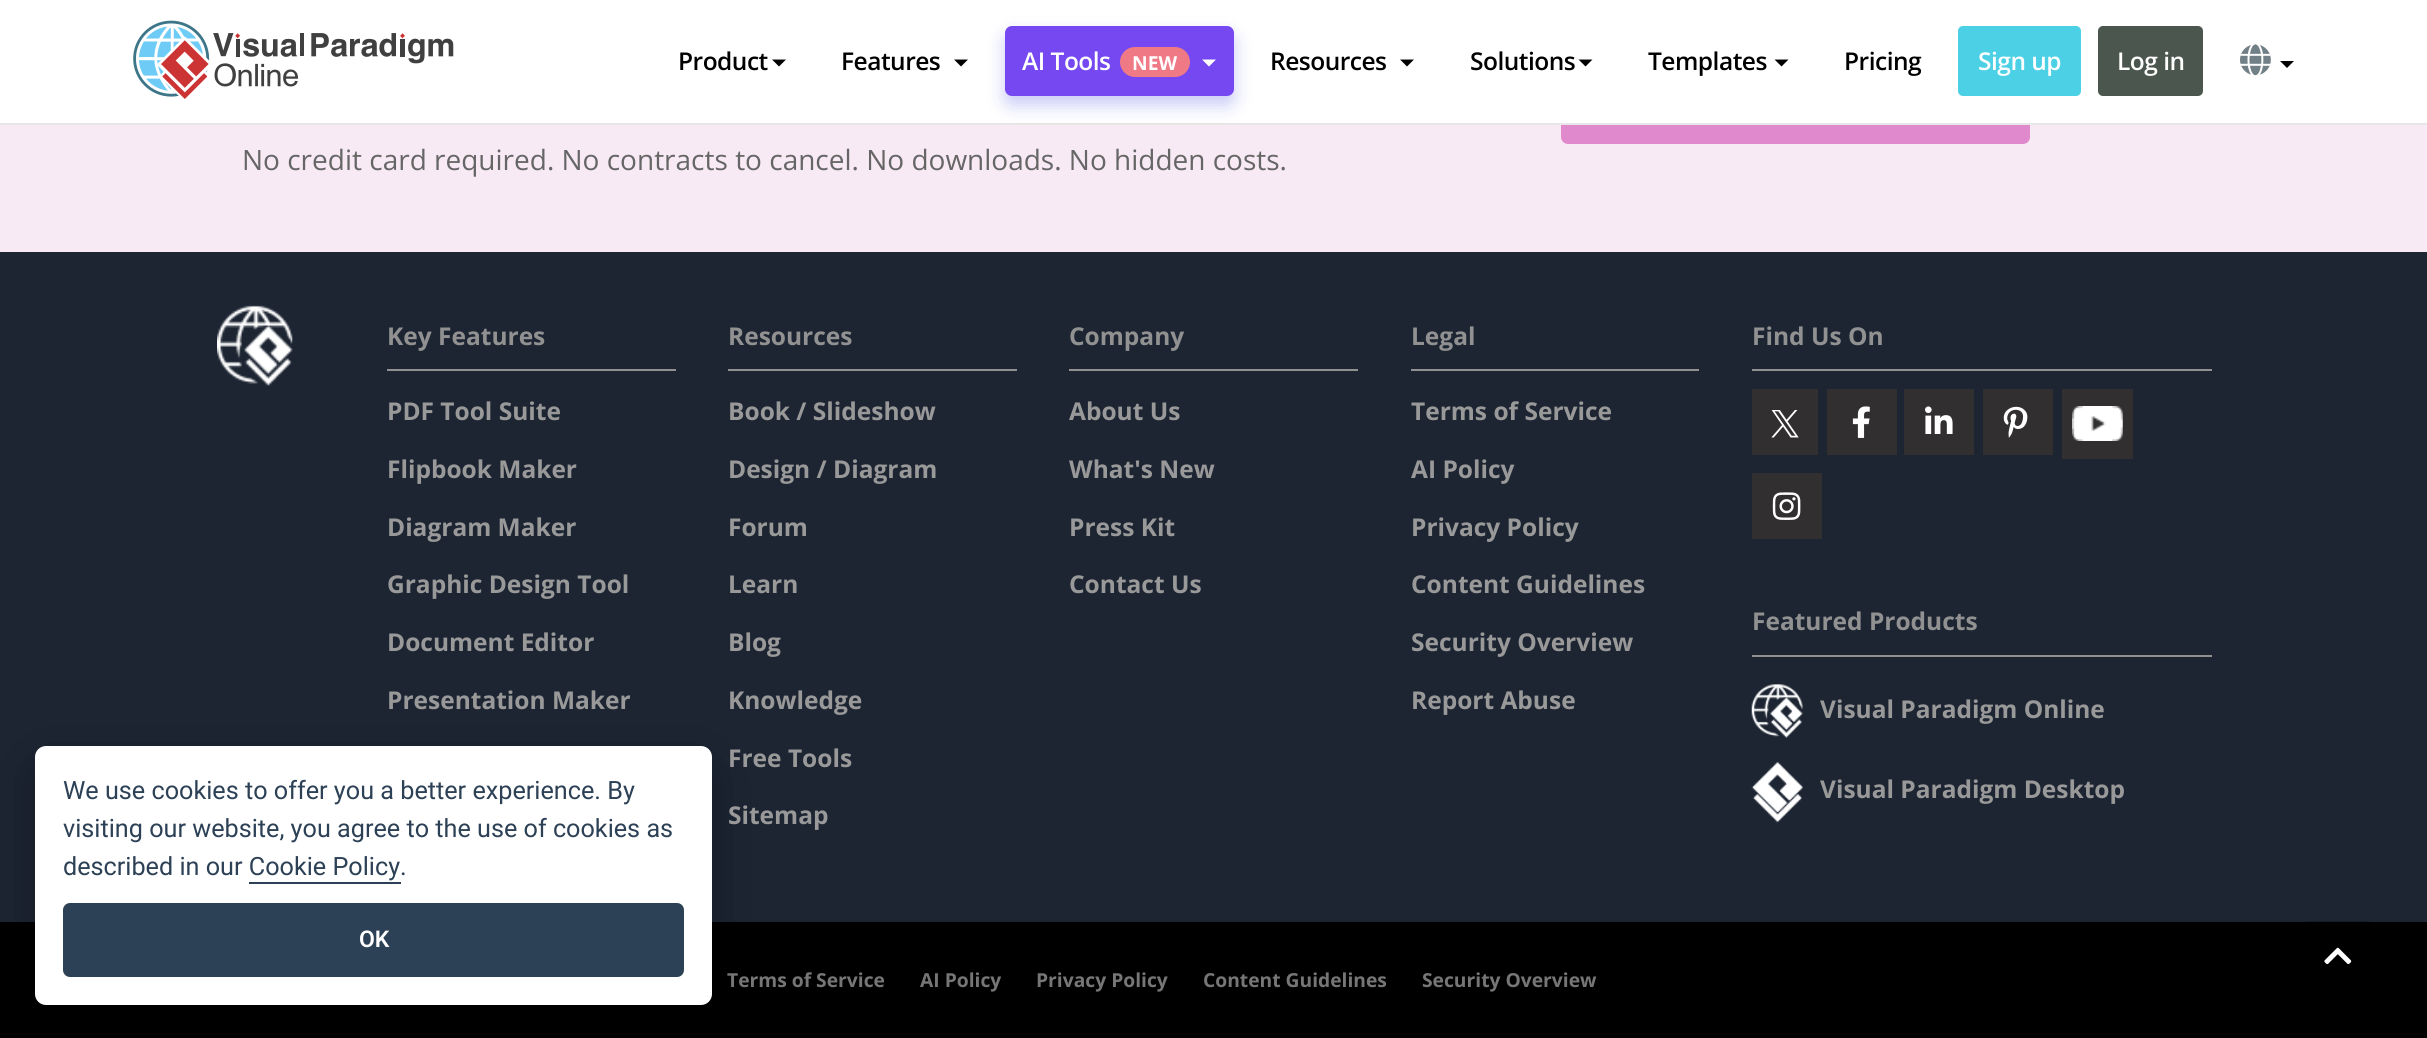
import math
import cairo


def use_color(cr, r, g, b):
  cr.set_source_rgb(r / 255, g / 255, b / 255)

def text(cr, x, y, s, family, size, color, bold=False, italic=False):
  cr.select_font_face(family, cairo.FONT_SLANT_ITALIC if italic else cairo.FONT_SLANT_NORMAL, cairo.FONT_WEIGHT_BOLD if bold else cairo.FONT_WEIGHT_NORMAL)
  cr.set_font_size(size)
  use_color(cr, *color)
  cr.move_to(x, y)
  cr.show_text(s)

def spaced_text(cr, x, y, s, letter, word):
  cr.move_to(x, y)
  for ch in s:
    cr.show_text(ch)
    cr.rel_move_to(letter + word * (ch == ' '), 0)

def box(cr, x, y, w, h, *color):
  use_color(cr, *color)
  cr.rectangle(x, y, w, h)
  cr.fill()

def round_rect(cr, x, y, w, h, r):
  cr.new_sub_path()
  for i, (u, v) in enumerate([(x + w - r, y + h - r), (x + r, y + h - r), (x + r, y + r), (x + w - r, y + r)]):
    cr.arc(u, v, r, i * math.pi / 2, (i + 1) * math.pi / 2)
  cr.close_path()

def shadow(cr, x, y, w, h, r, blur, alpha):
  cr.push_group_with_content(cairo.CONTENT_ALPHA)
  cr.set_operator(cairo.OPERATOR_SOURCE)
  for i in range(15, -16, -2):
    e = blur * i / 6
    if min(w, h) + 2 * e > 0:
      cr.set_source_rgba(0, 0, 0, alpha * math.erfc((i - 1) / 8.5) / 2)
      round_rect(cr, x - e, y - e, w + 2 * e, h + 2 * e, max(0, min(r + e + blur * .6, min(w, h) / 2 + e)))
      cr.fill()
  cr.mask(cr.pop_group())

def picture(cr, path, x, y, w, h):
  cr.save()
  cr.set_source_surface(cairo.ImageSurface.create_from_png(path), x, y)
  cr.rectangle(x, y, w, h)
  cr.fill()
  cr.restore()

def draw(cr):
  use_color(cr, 248, 234, 245)
  cr.paint()
  use_color(cr, 224, 137, 205)
  round_rect(cr, 1561, 74, 469, 70, 7)
  cr.fill()
  box(cr, 0, 0, 2427, 123, 255, 255, 255)
  box(cr, 0, 123, 2427, 2, 231, 231, 231)
  picture(cr, "img_01.png", 133, 20, 321, 79)
  use_color(cr, 0, 0, 0)
  cr.new_path()
  cr.move_to(772, 59.5)
  cr.line_to(786, 59.5)
  cr.line_to(779, 66.5)
  cr.close_path()
  cr.fill()
  cr.new_path()
  cr.move_to(954, 59.5)
  cr.line_to(968, 59.5)
  cr.line_to(961, 66.5)
  cr.close_path()
  cr.fill()
  use_color(cr, 76, 78, 229)
  shadow(cr, 1005, 35, 229, 70, 7, 9, 0.3)
  use_color(cr, 117, 72, 241)
  round_rect(cr, 1005, 26, 229, 70, 7)
  cr.fill()
  use_color(cr, 239, 122, 133)
  round_rect(cr, 1120, 47, 70, 30, 15)
  cr.fill()
  use_color(cr, 255, 255, 255)
  cr.new_path()
  cr.move_to(1202, 59.5)
  cr.line_to(1216, 59.5)
  cr.line_to(1209, 66.5)
  cr.close_path()
  cr.fill()
  use_color(cr, 0, 0, 0)
  cr.new_path()
  cr.move_to(1400, 59.5)
  cr.line_to(1414, 59.5)
  cr.line_to(1407, 66.5)
  cr.close_path()
  cr.fill()
  cr.new_path()
  cr.move_to(1578.5, 59.5)
  cr.line_to(1592.5, 59.5)
  cr.line_to(1585.5, 66.5)
  cr.close_path()
  cr.fill()
  cr.new_path()
  cr.move_to(1774.5, 59.5)
  cr.line_to(1788.5, 59.5)
  cr.line_to(1781.5, 66.5)
  cr.close_path()
  cr.fill()
  use_color(cr, 76, 208, 229)
  round_rect(cr, 1958, 26, 123, 70, 5)
  cr.fill()
  use_color(cr, 74, 86, 78)
  round_rect(cr, 2098, 26, 105, 70, 5)
  cr.fill()
  picture(cr, "img_02.png", 2240, 44, 31, 32)
  use_color(cr, 0, 0, 0)
  cr.new_path()
  cr.move_to(2280, 61)
  cr.line_to(2294, 61)
  cr.line_to(2287, 68)
  cr.close_path()
  cr.fill()
  box(cr, 0, 252, 2427, 670, 29, 37, 51)
  box(cr, 0, 922, 2427, 116, 0, 0, 0)
  use_color(cr, 2, 2, 3)
  shadow(cr, 35, 763, 677, 259, 11, 26, 0.28)
  use_color(cr, 255, 255, 255)
  round_rect(cr, 35, 746, 677, 259, 11)
  cr.fill()
  box(cr, 249, 882, 152, 2, 45, 65, 86)
  round_rect(cr, 63, 903, 621, 74, 7)
  cr.fill()
  picture(cr, "img_03.png", 217, 305, 76, 81)
  box(cr, 387, 369, 289, 2, 145, 145, 145)
  box(cr, 728, 369, 289, 2, 145, 145, 145)
  box(cr, 1069, 369, 289, 2, 145, 145, 145)
  box(cr, 1411, 369, 288, 2, 145, 145, 145)
  box(cr, 1752, 369, 460, 2, 145, 145, 145)
  box(cr, 1752, 389, 66, 66, 50, 47, 48)
  picture(cr, "img_04.png", 1771, 410, 28, 28)
  box(cr, 1827, 389, 70, 66, 50, 47, 48)
  picture(cr, "img_05.png", 1852, 406, 18, 32)
  box(cr, 1904, 389, 70, 66, 50, 47, 48)
  picture(cr, "img_06.png", 1925, 406, 28, 28)
  box(cr, 1983, 389, 70, 66, 50, 47, 48)
  picture(cr, "img_07.png", 2003, 406, 25, 32)
  box(cr, 2062, 389, 71, 70, 50, 47, 48)
  picture(cr, "img_08.png", 2072, 406, 51, 35)
  box(cr, 1752, 473, 70, 66, 50, 47, 48)
  picture(cr, "img_09.png", 1772, 492, 29, 28)
  box(cr, 1752, 655, 460, 2, 145, 145, 145)
  picture(cr, "img_10.png", 1751, 684, 52, 54)
  picture(cr, "img_11.png", 1751, 761, 52, 62)
  cr.set_source_rgba(0, 0, 0, 0.2)
  round_rect(cr, 2298, 921, 80, 70, 11)
  cr.fill()
  picture(cr, "img_12.png", 2324, 947, 28, 18)
  cr.select_font_face("Open Sans SemiBold")
  cr.set_font_size(24.5)
  use_color(cr, 0, 0, 0)
  spaced_text(cr, 678, 70, "Product", -0.5, 0)
  spaced_text(cr, 841, 70, "Features", -0.5, 0)
  use_color(cr, 255, 255, 255)
  spaced_text(cr, 1022, 70, "AI Tools", -0.5, 0)
  text(cr, 1132, 70, "NEW", "Open Sans", 19.25, (255, 255, 255), bold=True)
  cr.select_font_face("Open Sans SemiBold")
  cr.set_font_size(24.5)
  use_color(cr, 0, 0, 0)
  spaced_text(cr, 1270, 70, "Resources", -0.5, 0)
  spaced_text(cr, 1470, 70, "Solutions", -0.5, 0)
  spaced_text(cr, 1648, 70, "Templates", -0.5, 0)
  spaced_text(cr, 1844, 70, "Pricing", -0.5, 0)
  use_color(cr, 255, 255, 255)
  spaced_text(cr, 1978, 70, "Sign up", -0.5, 0)
  spaced_text(cr, 2117, 70, "Log in", -0.5, 0)
  text(cr, 242, 170, "No credit card required. No contracts to cancel. No downloads. No hidden costs.", "Open Sans", 28, (102, 102, 102))
  text(cr, 63, 799, "We use cookies to offer you a better experience. By", "Roboto", 25.2, (45, 65, 86))
  text(cr, 63, 837, "visiting our website, you agree to the use of cookies as", "Roboto", 25.2, (45, 65, 86))
  text(cr, 63, 875, "described in our Cookie Policy.", "Roboto", 25.2, (45, 65, 86))
  text(cr, 359, 947, "OK", "Roboto SemiBold", 23, (255, 255, 255))
  text(cr, 387, 345, "Key Features", "Open Sans", 24.5, (145, 145, 145), bold=True)
  text(cr, 387, 420, "PDF Tool Suite", "Open Sans", 24.5, (153, 153, 153), bold=True)
  text(cr, 387, 478, "Flipbook Maker", "Open Sans", 24.5, (153, 153, 153), bold=True)
  text(cr, 387, 536, "Diagram Maker", "Open Sans", 24.5, (153, 153, 153), bold=True)
  text(cr, 387, 593, "Graphic Design Tool", "Open Sans", 24.5, (153, 153, 153), bold=True)
  text(cr, 387, 651, "Document Editor", "Open Sans", 24.5, (153, 153, 153), bold=True)
  text(cr, 387, 709, "Presentation Maker", "Open Sans", 24.5, (153, 153, 153), bold=True)
  text(cr, 728, 345, "Resources", "Open Sans", 24.5, (145, 145, 145), bold=True)
  text(cr, 728, 420, "Book / Slideshow", "Open Sans", 24.5, (153, 153, 153), bold=True)
  text(cr, 728, 478, "Design / Diagram", "Open Sans", 24.5, (153, 153, 153), bold=True)
  text(cr, 728, 536, "Forum", "Open Sans", 24.5, (153, 153, 153), bold=True)
  text(cr, 728, 593, "Learn", "Open Sans", 24.5, (153, 153, 153), bold=True)
  text(cr, 728, 651, "Blog", "Open Sans", 24.5, (153, 153, 153), bold=True)
  text(cr, 728, 709, "Knowledge", "Open Sans", 24.5, (153, 153, 153), bold=True)
  text(cr, 728, 767, "Free Tools", "Open Sans", 24.5, (153, 153, 153), bold=True)
  text(cr, 728, 824, "Sitemap", "Open Sans", 24.5, (153, 153, 153), bold=True)
  text(cr, 1069, 345, "Company", "Open Sans", 24.5, (145, 145, 145), bold=True)
  text(cr, 1069, 420, "About Us", "Open Sans", 24.5, (153, 153, 153), bold=True)
  text(cr, 1069, 478, "What's New", "Open Sans", 24.5, (153, 153, 153), bold=True)
  text(cr, 1069, 536, "Press Kit", "Open Sans", 24.5, (153, 153, 153), bold=True)
  text(cr, 1069, 593, "Contact Us", "Open Sans", 24.5, (153, 153, 153), bold=True)
  text(cr, 1411, 345, "Legal", "Open Sans", 24.5, (145, 145, 145), bold=True)
  text(cr, 1411, 420, "Terms of Service", "Open Sans", 24.5, (153, 153, 153), bold=True)
  text(cr, 1411, 478, "AI Policy", "Open Sans", 24.5, (153, 153, 153), bold=True)
  text(cr, 1411, 536, "Privacy Policy", "Open Sans", 24.5, (153, 153, 153), bold=True)
  text(cr, 1411, 593, "Content Guidelines", "Open Sans", 24.5, (153, 153, 153), bold=True)
  text(cr, 1411, 651, "Security Overview", "Open Sans", 24.5, (153, 153, 153), bold=True)
  text(cr, 1411, 709, "Report Abuse", "Open Sans", 24.5, (153, 153, 153), bold=True)
  text(cr, 1752, 345, "Find Us On", "Open Sans", 24.5, (145, 145, 145), bold=True)
  text(cr, 1752, 630, "Featured Products", "Open Sans", 24.5, (145, 145, 145), bold=True)
  text(cr, 1820, 718, "Visual Paradigm Online", "Open Sans", 24.5, (153, 153, 153), bold=True)
  text(cr, 1820, 798, "Visual Paradigm Desktop", "Open Sans", 24.5, (153, 153, 153), bold=True)
  text(cr, 727, 987, "Terms of Service", "Open Sans", 19.25, (118, 118, 118), bold=True)
  text(cr, 920, 987, "AI Policy", "Open Sans", 19.25, (118, 118, 118), bold=True)
  text(cr, 1036, 987, "Privacy Policy", "Open Sans", 19.25, (118, 118, 118), bold=True)
  text(cr, 1203, 987, "Content Guidelines", "Open Sans", 19.25, (118, 118, 118), bold=True)
  text(cr, 1422, 987, "Security Overview", "Open Sans", 19.25, (118, 118, 118), bold=True)


surface = cairo.ImageSurface(cairo.FORMAT_RGB24, 2427, 1038)
cr = cairo.Context(surface)
options = cairo.FontOptions()
options.set_hint_metrics(cairo.HINT_METRICS_OFF)
options.set_hint_style(cairo.HINT_STYLE_NONE)
cr.set_font_options(options)
cr.set_miter_limit(4)
draw(cr)
surface.write_to_png("out.png")
